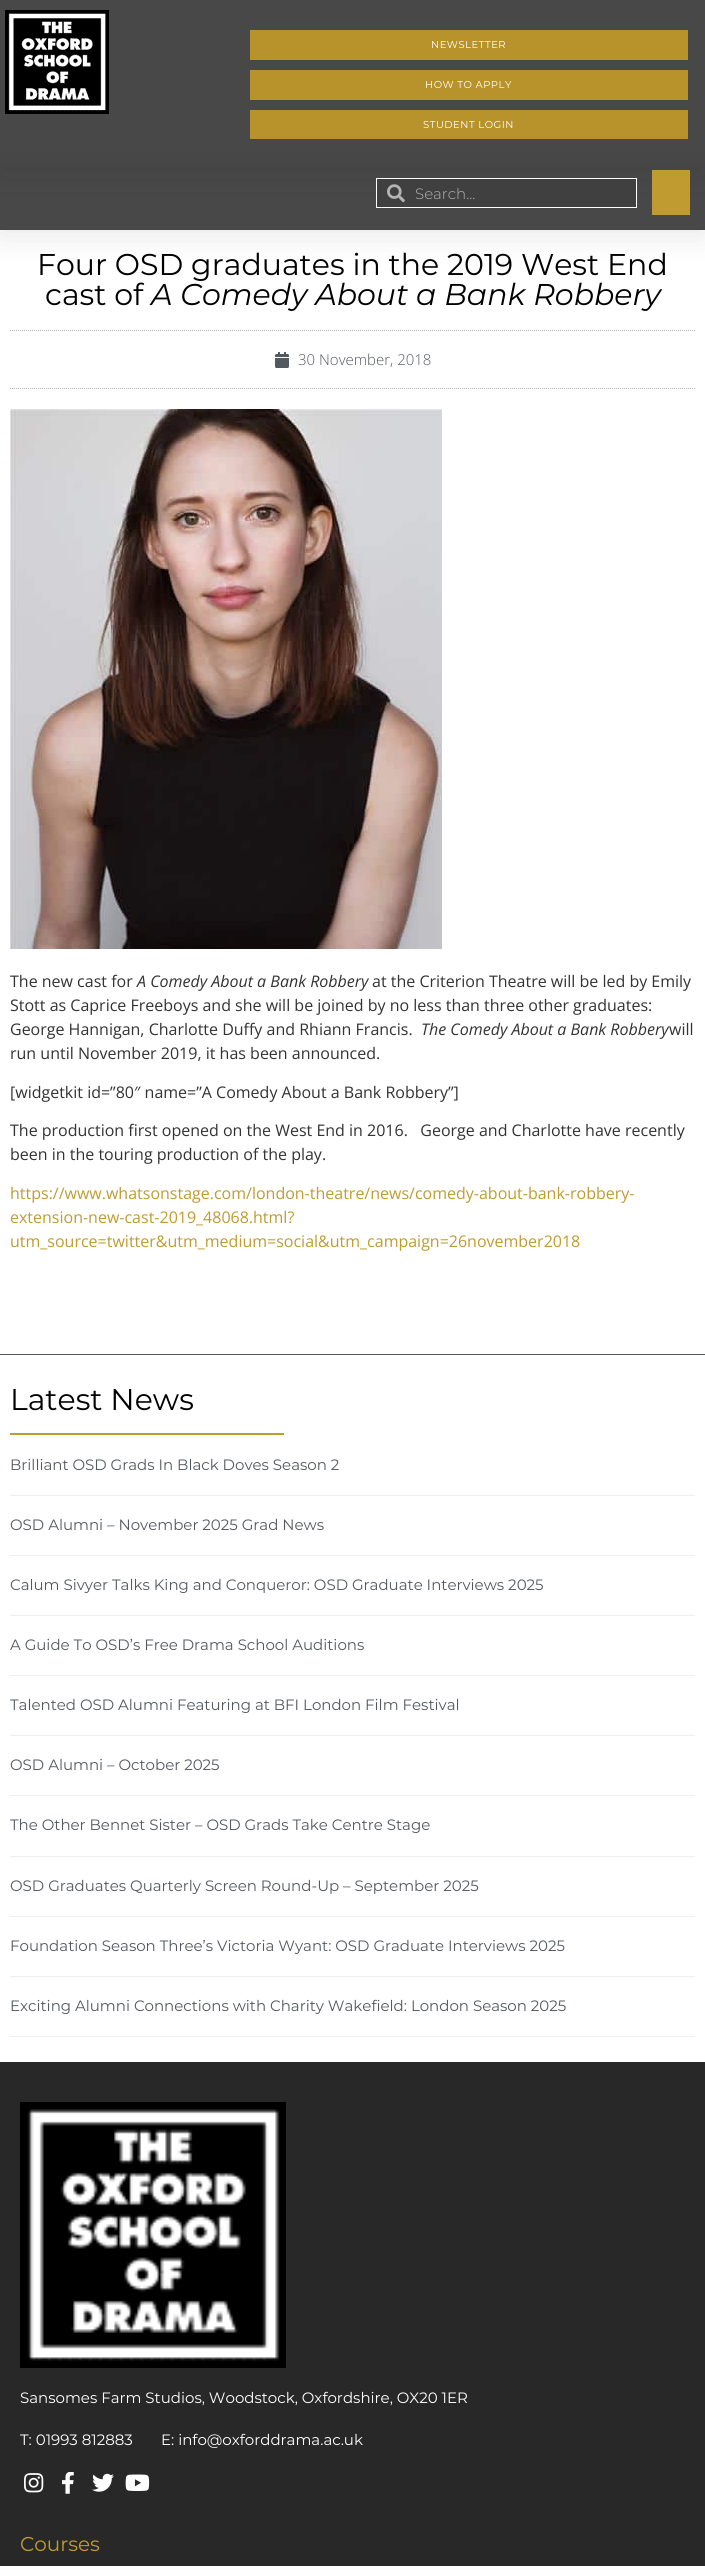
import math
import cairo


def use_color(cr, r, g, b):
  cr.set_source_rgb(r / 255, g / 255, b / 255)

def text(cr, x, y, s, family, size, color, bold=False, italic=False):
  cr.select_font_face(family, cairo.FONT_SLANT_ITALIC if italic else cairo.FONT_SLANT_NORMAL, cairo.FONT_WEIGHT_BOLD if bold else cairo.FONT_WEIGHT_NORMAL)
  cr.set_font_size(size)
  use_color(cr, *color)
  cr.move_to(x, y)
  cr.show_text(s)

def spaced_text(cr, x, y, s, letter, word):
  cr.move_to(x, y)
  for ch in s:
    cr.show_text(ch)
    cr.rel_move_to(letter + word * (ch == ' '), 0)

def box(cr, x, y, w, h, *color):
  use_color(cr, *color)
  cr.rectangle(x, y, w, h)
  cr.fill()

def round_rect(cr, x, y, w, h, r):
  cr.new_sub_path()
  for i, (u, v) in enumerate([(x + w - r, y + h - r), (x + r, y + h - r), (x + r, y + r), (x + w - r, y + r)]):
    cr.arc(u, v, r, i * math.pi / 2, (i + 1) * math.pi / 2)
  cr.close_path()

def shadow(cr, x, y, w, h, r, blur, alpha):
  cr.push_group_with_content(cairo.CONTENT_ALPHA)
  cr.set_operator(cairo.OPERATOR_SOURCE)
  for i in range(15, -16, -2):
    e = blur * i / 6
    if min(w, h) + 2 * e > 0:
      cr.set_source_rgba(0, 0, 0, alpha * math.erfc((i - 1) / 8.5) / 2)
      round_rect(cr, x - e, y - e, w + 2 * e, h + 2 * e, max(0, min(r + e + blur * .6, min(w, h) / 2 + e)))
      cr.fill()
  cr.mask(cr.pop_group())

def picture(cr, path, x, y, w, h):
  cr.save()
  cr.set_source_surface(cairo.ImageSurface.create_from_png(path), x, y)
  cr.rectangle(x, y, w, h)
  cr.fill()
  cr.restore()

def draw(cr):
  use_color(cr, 255, 255, 255)
  cr.paint()
  box(cr, 0, 170, 705, 60, 72, 72, 72)
  use_color(cr, 34, 34, 34)
  shadow(cr, 0, 5, 705, 170, 0, 15, 0.1)
  box(cr, 0, 0, 705, 170, 72, 72, 72)
  picture(cr, "img_01.png", 5, 10, 104, 104)
  box(cr, 250, 30, 438, 30, 184, 146, 42)
  box(cr, 250, 70, 438, 30, 184, 146, 42)
  box(cr, 250, 110, 438, 29, 184, 146, 42)
  cr.save()
  cr.set_fill_rule(cairo.FILL_RULE_EVEN_ODD)
  cr.new_path()
  cr.move_to(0, 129)
  cr.line_to(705, 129)
  cr.line_to(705, 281)
  cr.line_to(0, 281)
  cr.close_path()
  cr.move_to(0, 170)
  cr.line_to(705, 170)
  cr.line_to(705, 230)
  cr.line_to(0, 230)
  cr.close_path()
  cr.clip()
  use_color(cr, 0, 0, 0)
  shadow(cr, 0, 175, 705, 60, 0, 15, 0.1)
  cr.restore()
  use_color(cr, 64, 64, 64)
  cr.rectangle(376.5, 178.5, 260, 29)
  cr.fill_preserve()
  use_color(cr, 255, 255, 255)
  cr.set_line_width(1)
  cr.stroke()
  picture(cr, "img_02.png", 387, 184, 18, 19)
  box(cr, 652, 170, 38, 45, 191, 155, 48)
  box(cr, 0, 1354, 705, 1, 84, 89, 95)
  cr.new_path()
  cr.move_to(10, 330.5)
  cr.line_to(695, 330.5)
  use_color(cr, 175, 175, 175)
  cr.set_dash([1, 1])
  cr.stroke()
  cr.new_path()
  cr.move_to(10, 388.5)
  cr.line_to(695, 388.5)
  cr.stroke()
  picture(cr, "img_03.png", 275, 352, 14, 16)
  picture(cr, "img_04.png", 10, 409, 432, 540)
  box(cr, 10, 1433, 274, 2, 191, 155, 48)
  box(cr, 10, 1495, 685, 1, 239, 239, 239)
  box(cr, 10, 1555, 685, 1, 239, 239, 239)
  box(cr, 10, 1615, 685, 1, 239, 239, 239)
  box(cr, 10, 1675, 685, 1, 239, 239, 239)
  box(cr, 10, 1735, 685, 1, 239, 239, 239)
  box(cr, 10, 1795, 685, 1, 239, 239, 239)
  box(cr, 10, 1856, 685, 1, 239, 239, 239)
  box(cr, 10, 1916, 685, 1, 239, 239, 239)
  box(cr, 10, 1976, 685, 1, 239, 239, 239)
  box(cr, 10, 2036, 685, 1, 239, 239, 239)
  box(cr, 0, 2062, 705, 504, 40, 40, 40)
  picture(cr, "img_05.png", 20, 2102, 266, 266)
  picture(cr, "img_06.png", 24, 2473, 20, 20)
  picture(cr, "img_07.png", 62, 2472, 12, 22)
  picture(cr, "img_08.png", 92, 2473, 22, 19)
  picture(cr, "img_09.png", 125, 2474, 25, 17)
  cr.select_font_face("Montserrat")
  cr.set_font_size(10)
  use_color(cr, 255, 255, 255)
  spaced_text(cr, 431, 48, "NEWSLETTER", 0.5, 0)
  spaced_text(cr, 425, 88, "HOW TO APPLY", 0.5, 0)
  spaced_text(cr, 423, 128, "STUDENT LOGIN", 0.5, 0)
  text(cr, 415, 199, "Search...", "Montserrat Light", 15, (179, 179, 179))
  text(cr, 37, 275, "Four OSD graduates in the 2019 West End", "Montserrat", 30, (0, 0, 0))
  text(cr, 45, 305, "cast of", "Montserrat", 30, (0, 0, 0))
  text(cr, 151, 305, "A Comedy About a Bank Robbery", "Montserrat", 30, (0, 0, 0), italic=True)
  text(cr, 298, 365, "30 November, 2018", "Open Sans Light", 15, (84, 89, 95))
  text(cr, 10, 987, "The new cast for", "Open Sans", 16, (51, 51, 51))
  text(cr, 137, 987, "A Comedy About a Bank Robbery", "Open Sans", 16, (51, 51, 51), italic=True)
  text(cr, 372, 987, "at the Criterion Theatre will be led by Emily", "Open Sans", 16, (51, 51, 51))
  text(cr, 10, 1011, "Stott as Caprice Freeboys and she will be joined by no less than three other graduates:", "Open Sans", 16, (51, 51, 51))
  text(cr, 10, 1035, "George Hannigan, Charlotte Duffy and Rhiann Francis.", "Open Sans", 16, (51, 51, 51))
  text(cr, 421, 1035, "The Comedy About a Bank Robbery", "Open Sans", 16, (51, 51, 51), italic=True)
  text(cr, 669, 1035, "will", "Open Sans", 16, (51, 51, 51))
  text(cr, 10, 1059, "run until November 2019, it has been announced.", "Open Sans", 16, (51, 51, 51))
  text(cr, 10, 1098, "[widgetkit id=”80″ name=”A Comedy About a Bank Robbery”]", "Open Sans", 16, (51, 51, 51))
  text(cr, 10, 1136, "The production first opened on the West End in 2016.   George and Charlotte have recently", "Open Sans", 16, (51, 51, 51))
  text(cr, 10, 1160, "been in the touring production of the play.", "Open Sans", 16, (51, 51, 51))
  text(cr, 10, 1199, "https://www.whatsonstage.com/london-theatre/news/comedy-about-bank-robbery-", "Open Sans", 16, (191, 155, 48))
  text(cr, 10, 1223, "extension-new-cast-2019_48068.html?", "Open Sans", 16, (191, 155, 48))
  text(cr, 10, 1247, "utm_source=twitter&utm_medium=social&utm_campaign=26november2018", "Open Sans", 16, (191, 155, 48))
  text(cr, 10, 1410, "Latest News", "Montserrat", 30, (0, 0, 0))
  text(cr, 10, 1470, "Brilliant OSD Grads In Black Doves Season 2", "Montserrat", 15, (84, 89, 95))
  text(cr, 10, 1530, "OSD Alumni – November 2025 Grad News", "Montserrat", 15, (84, 89, 95))
  text(cr, 10, 1590, "Calum Sivyer Talks King and Conqueror: OSD Graduate Interviews 2025", "Montserrat", 15, (84, 89, 95))
  text(cr, 10, 1650, "A Guide To OSD’s Free Drama School Auditions", "Montserrat", 15, (84, 89, 95))
  text(cr, 10, 1710, "Talented OSD Alumni Featuring at BFI London Film Festival", "Montserrat", 15, (84, 89, 95))
  text(cr, 10, 1770, "OSD Alumni – October 2025", "Montserrat", 15, (84, 89, 95))
  text(cr, 10, 1830, "The Other Bennet Sister – OSD Grads Take Centre Stage", "Montserrat", 15, (84, 89, 95))
  text(cr, 10, 1891, "OSD Graduates Quarterly Screen Round-Up – September 2025", "Montserrat", 15, (84, 89, 95))
  text(cr, 10, 1951, "Foundation Season Three’s Victoria Wyant: OSD Graduate Interviews 2025", "Montserrat", 15, (84, 89, 95))
  text(cr, 10, 2011, "Exciting Alumni Connections with Charity Wakefield: London Season 2025", "Montserrat", 15, (84, 89, 95))
  text(cr, 20, 2403, "Sansomes Farm Studios, Woodstock, Oxfordshire, OX20 1ER", "Montserrat", 15, (255, 255, 255))
  text(cr, 20, 2445, "T: 01993 812883", "Montserrat", 15, (255, 255, 255))
  text(cr, 161, 2445, "E: info@oxforddrama.ac.uk", "Montserrat", 15, (255, 255, 255))
  text(cr, 20, 2551, "Courses", "Montserrat", 20, (191, 155, 48))


surface = cairo.ImageSurface(cairo.FORMAT_RGB24, 705, 2566)
cr = cairo.Context(surface)
options = cairo.FontOptions()
options.set_hint_metrics(cairo.HINT_METRICS_OFF)
options.set_hint_style(cairo.HINT_STYLE_NONE)
cr.set_font_options(options)
cr.set_miter_limit(4)
draw(cr)
surface.write_to_png("out.png")
